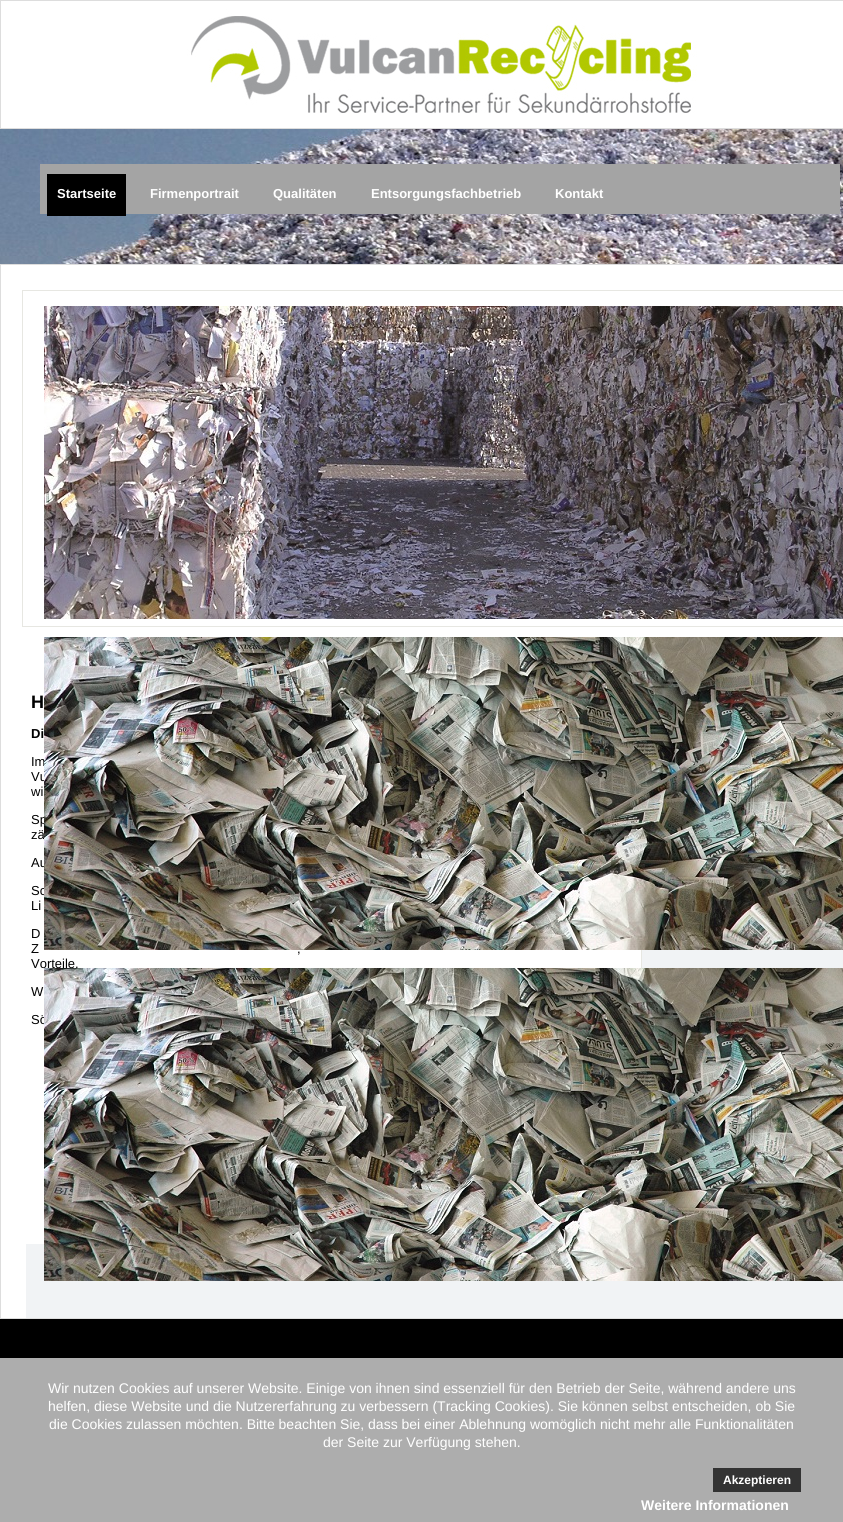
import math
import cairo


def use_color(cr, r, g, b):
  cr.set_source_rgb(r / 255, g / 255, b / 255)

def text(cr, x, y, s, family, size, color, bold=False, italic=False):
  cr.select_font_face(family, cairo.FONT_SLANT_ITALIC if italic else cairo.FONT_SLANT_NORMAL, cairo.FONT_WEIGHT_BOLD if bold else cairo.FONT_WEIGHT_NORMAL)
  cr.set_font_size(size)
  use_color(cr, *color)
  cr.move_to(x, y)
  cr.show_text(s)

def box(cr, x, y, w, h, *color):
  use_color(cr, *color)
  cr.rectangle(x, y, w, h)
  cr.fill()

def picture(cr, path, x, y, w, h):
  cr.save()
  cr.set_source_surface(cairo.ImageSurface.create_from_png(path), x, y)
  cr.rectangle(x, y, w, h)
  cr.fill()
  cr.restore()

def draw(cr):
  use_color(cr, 0, 0, 0)
  cr.paint()
  picture(cr, "img_01.png", 0, 129, 843, 135)
  picture(cr, "img_02.png", 1, 1, 842, 127)
  cr.rectangle(0.5, 0.5, 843, 128)
  use_color(cr, 221, 221, 221)
  cr.set_line_width(1)
  cr.stroke()
  box(cr, 40, 164, 800, 50, 164, 164, 164)
  box(cr, 47, 174, 79, 42, 0, 0, 0)
  use_color(cr, 255, 255, 255)
  cr.rectangle(0.5, 264.5, 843, 1054)
  cr.fill_preserve()
  use_color(cr, 221, 221, 221)
  cr.stroke()
  cr.rectangle(22.5, 290.5, 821, 336)
  use_color(cr, 231, 231, 226)
  cr.stroke()
  picture(cr, "img_03.png", 44, 306, 799, 313)
  box(cr, 642, 950, 201, 18, 241, 243, 245)
  cr.rectangle(641.5, 844.5, 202, 153)
  use_color(cr, 231, 231, 226)
  cr.stroke()
  box(cr, 26, 1244, 817, 74, 241, 243, 245)
  box(cr, 0, 1358, 843, 164, 173, 173, 173)
  box(cr, 713, 1468, 88, 24, 51, 51, 51)
  text(cr, 57, 198, "Startseite", "Liberation Sans", 13, (255, 255, 255), bold=True)
  text(cr, 150, 198, "Firmenportrait", "Liberation Sans", 13, (255, 255, 255), bold=True)
  text(cr, 273, 198, "Qualitäten", "Liberation Sans", 13, (255, 255, 255), bold=True)
  text(cr, 371, 198, "Entsorgungsfachbetrieb", "Liberation Sans", 13, (255, 255, 255), bold=True)
  text(cr, 555, 198, "Kontakt", "Liberation Sans", 13, (255, 255, 255), bold=True)
  text(cr, 31, 708, "H", "Liberation Sans", 18, (0, 0, 0), bold=True)
  text(cr, 31, 738, "Di", "Liberation Sans", 13, (0, 0, 0), bold=True)
  text(cr, 31, 766, "Im", "Liberation Sans", 13, (0, 0, 0))
  text(cr, 31, 781, "Vu", "Liberation Sans", 13, (0, 0, 0))
  text(cr, 31, 796, "wi", "Liberation Sans", 13, (0, 0, 0))
  text(cr, 31, 824, "Sp", "Liberation Sans", 13, (0, 0, 0))
  text(cr, 31, 839, "zä", "Liberation Sans", 13, (0, 0, 0))
  text(cr, 31, 867, "Au", "Liberation Sans", 13, (0, 0, 0))
  text(cr, 31, 895, "Sc", "Liberation Sans", 13, (0, 0, 0))
  picture(cr, "img_04.png", 44, 637, 799, 313)
  text(cr, 31, 910, "Li", "Liberation Sans", 13, (0, 0, 0))
  text(cr, 31, 938, "D", "Liberation Sans", 13, (0, 0, 0))
  text(cr, 31, 953, "Z", "Liberation Sans", 13, (0, 0, 0))
  text(cr, 297, 953, ",", "Liberation Sans", 13, (0, 0, 0))
  text(cr, 31, 968, "Vorteile.", "Liberation Sans", 13, (0, 0, 0))
  text(cr, 31, 996, "W", "Liberation Sans", 13, (0, 0, 0))
  text(cr, 31, 1024, "Sö", "Liberation Sans", 13, (0, 0, 0))
  picture(cr, "img_04.png", 44, 968, 799, 313)
  text(cr, 48, 1393, "Wir nutzen Cookies auf unserer Website. Einige von ihnen sind essenziell für den Betrieb der Seite, während andere uns", "Liberation Sans", 14, (255, 255, 255))
  text(cr, 48, 1411, "helfen, diese Website und die Nutzererfahrung zu verbessern (Tracking Cookies). Sie können selbst entscheiden, ob Sie", "Liberation Sans", 14, (255, 255, 255))
  text(cr, 49, 1429, "die Cookies zulassen möchten. Bitte beachten Sie, dass bei einer Ablehnung womöglich nicht mehr alle Funktionalitäten", "Liberation Sans", 14, (255, 255, 255))
  text(cr, 323, 1447, "der Seite zur Verfügung stehen.", "Liberation Sans", 14, (255, 255, 255))
  text(cr, 723, 1484, "Akzeptieren", "Liberation Sans", 12, (255, 255, 255), bold=True)
  text(cr, 641, 1510, "Weitere Informationen", "Liberation Sans", 14, (255, 255, 255), bold=True)


surface = cairo.ImageSurface(cairo.FORMAT_RGB24, 843, 1522)
cr = cairo.Context(surface)
options = cairo.FontOptions()
options.set_hint_metrics(cairo.HINT_METRICS_OFF)
options.set_hint_style(cairo.HINT_STYLE_NONE)
cr.set_font_options(options)
cr.set_miter_limit(4)
draw(cr)
surface.write_to_png("out.png")
